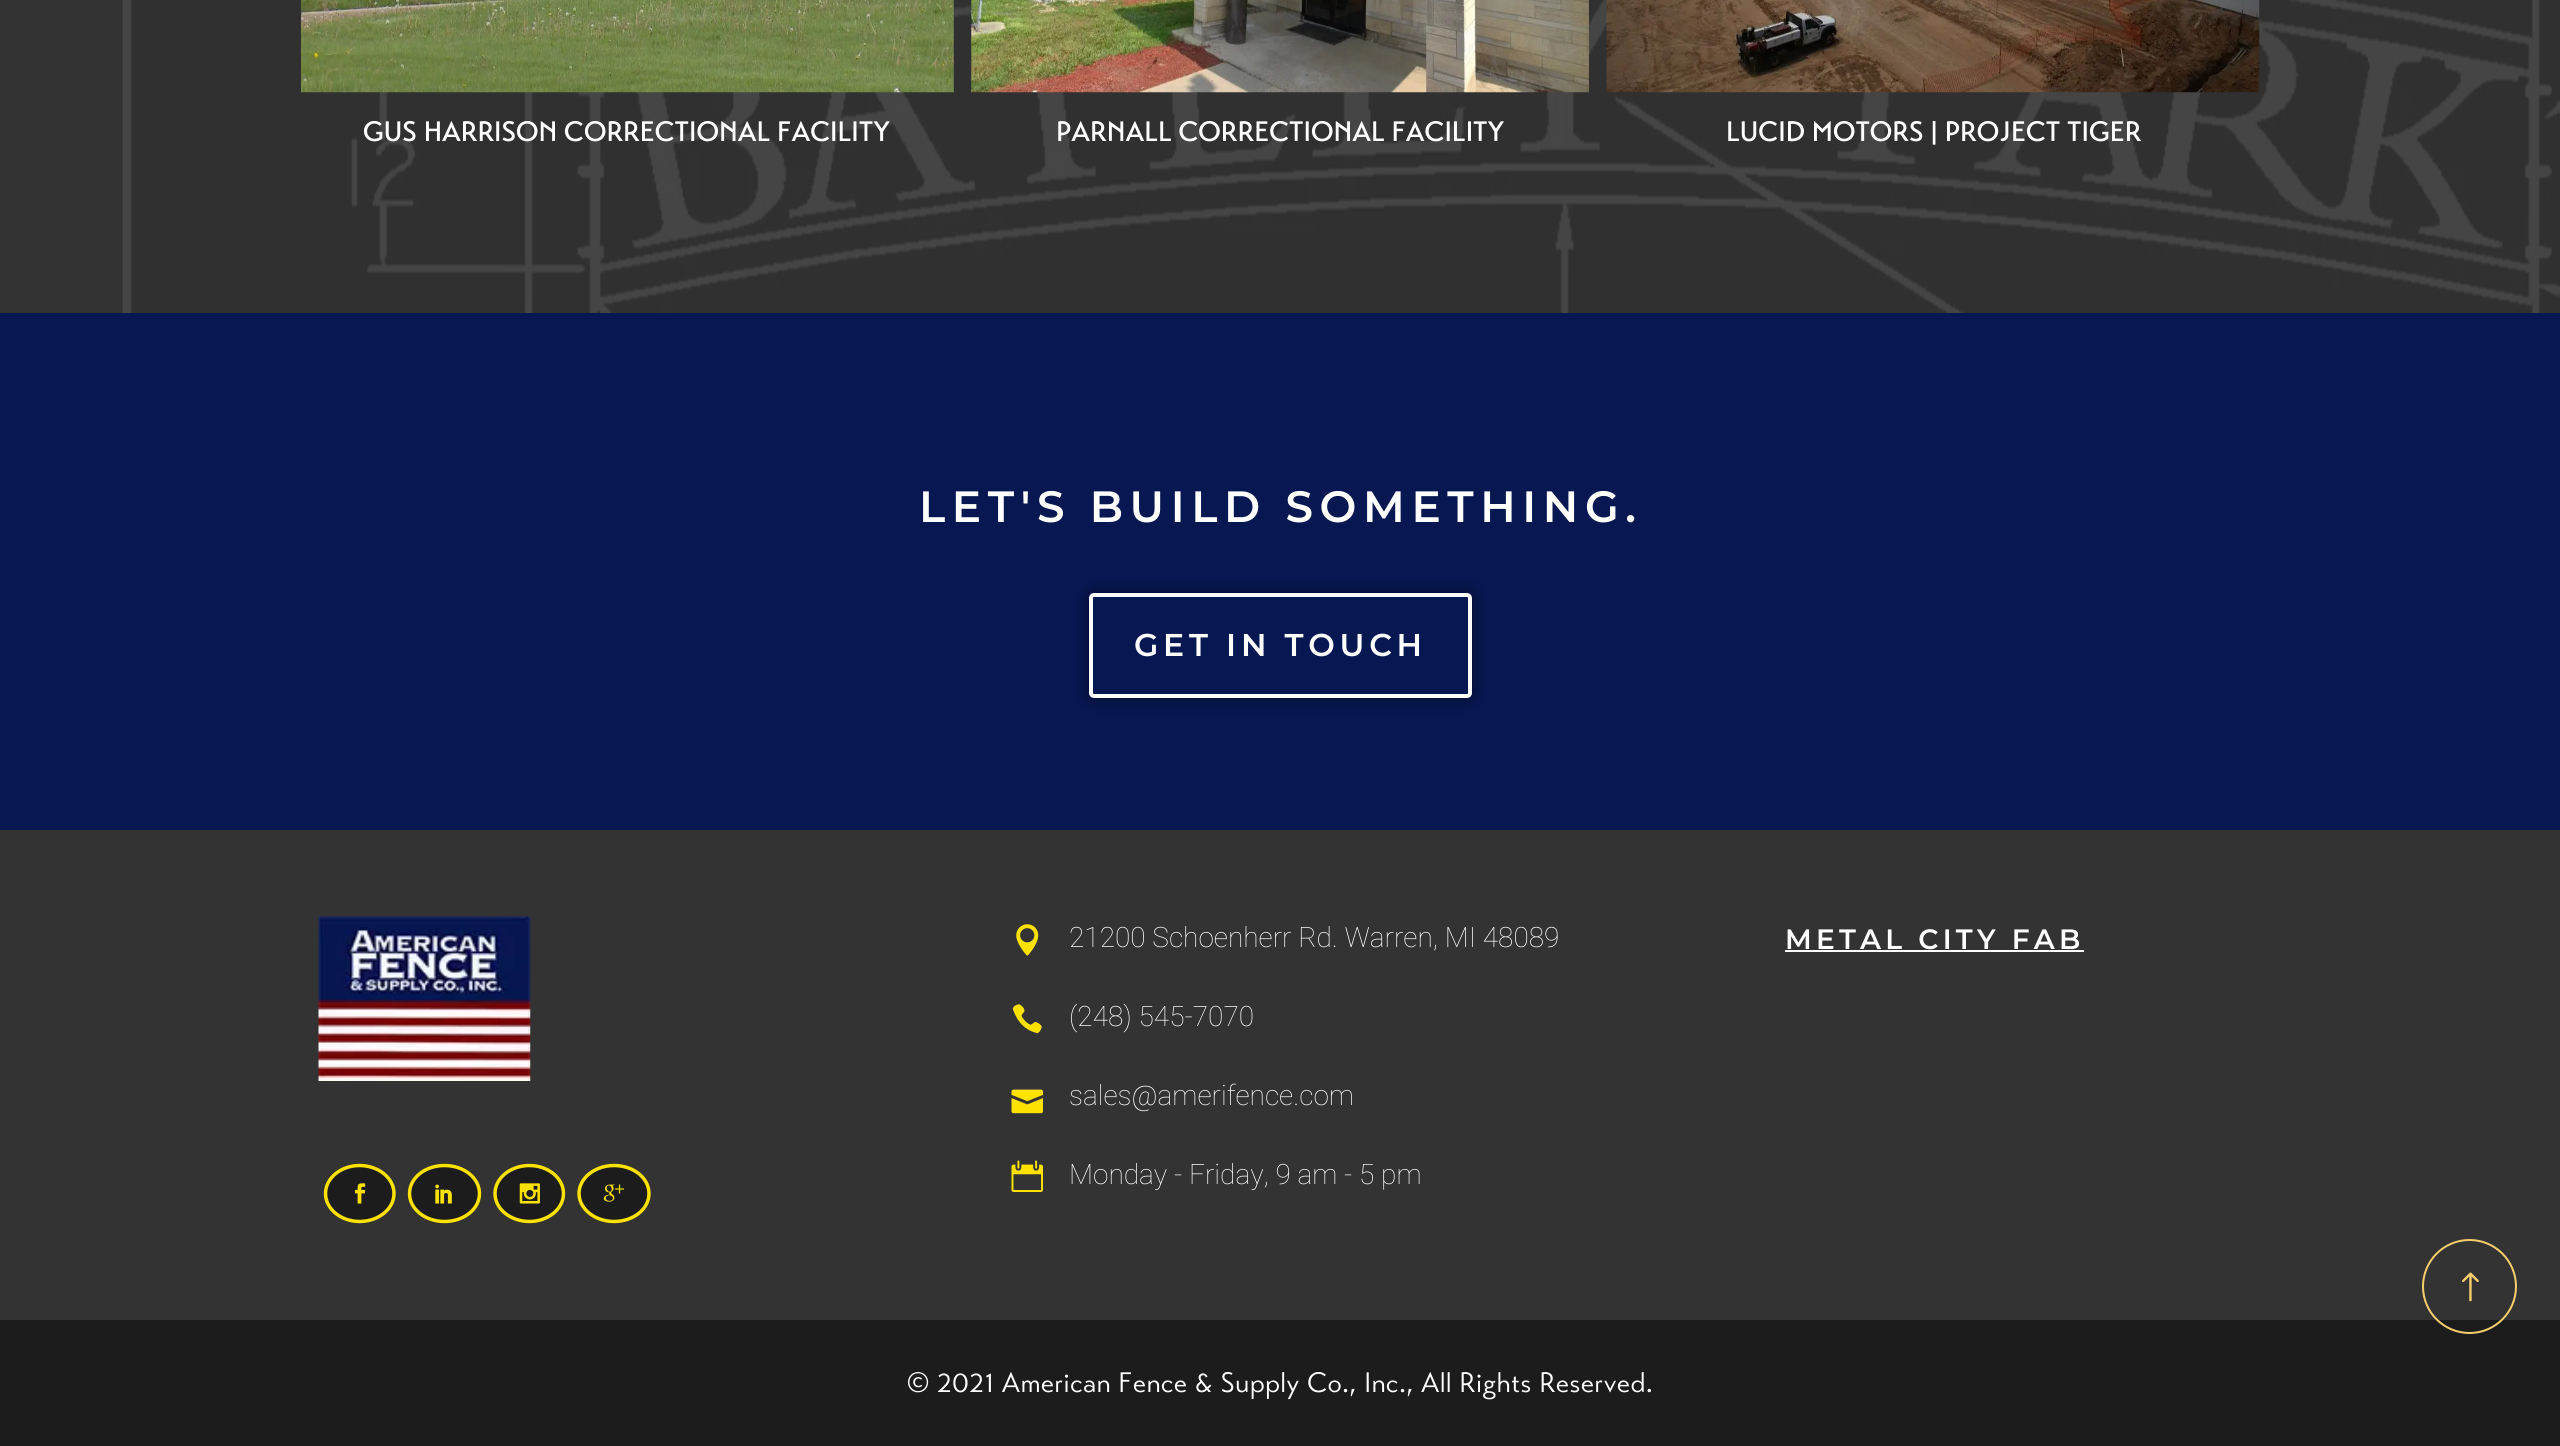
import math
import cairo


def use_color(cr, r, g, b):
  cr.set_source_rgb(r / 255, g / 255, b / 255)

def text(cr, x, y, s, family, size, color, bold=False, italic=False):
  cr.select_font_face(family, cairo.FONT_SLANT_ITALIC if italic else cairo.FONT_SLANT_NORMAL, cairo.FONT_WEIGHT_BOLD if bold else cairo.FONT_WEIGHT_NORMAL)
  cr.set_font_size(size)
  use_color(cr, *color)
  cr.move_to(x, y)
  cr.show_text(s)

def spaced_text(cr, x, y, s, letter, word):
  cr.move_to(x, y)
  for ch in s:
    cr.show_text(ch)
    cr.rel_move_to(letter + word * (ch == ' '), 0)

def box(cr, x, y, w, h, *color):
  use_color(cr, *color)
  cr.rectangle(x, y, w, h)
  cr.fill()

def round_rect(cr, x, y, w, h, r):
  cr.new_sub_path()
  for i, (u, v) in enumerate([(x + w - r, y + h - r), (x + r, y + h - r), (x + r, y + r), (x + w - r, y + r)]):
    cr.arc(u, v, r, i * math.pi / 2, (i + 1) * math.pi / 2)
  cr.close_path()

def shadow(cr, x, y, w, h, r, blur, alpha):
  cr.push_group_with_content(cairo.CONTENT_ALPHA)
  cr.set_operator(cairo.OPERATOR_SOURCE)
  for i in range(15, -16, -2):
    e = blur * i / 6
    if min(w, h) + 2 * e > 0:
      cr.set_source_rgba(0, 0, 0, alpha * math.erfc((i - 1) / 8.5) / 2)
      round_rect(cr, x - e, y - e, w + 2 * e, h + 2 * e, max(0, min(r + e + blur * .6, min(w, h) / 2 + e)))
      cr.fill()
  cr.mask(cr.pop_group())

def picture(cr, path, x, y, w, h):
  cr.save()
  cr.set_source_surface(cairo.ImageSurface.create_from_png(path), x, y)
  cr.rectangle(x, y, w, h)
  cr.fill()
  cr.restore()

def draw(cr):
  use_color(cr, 51, 51, 51)
  cr.paint()
  picture(cr, "img_01.png", 122, 0, 2438, 313)
  picture(cr, "img_02.png", 301, 0, 653, 93)
  picture(cr, "img_03.png", 971, 0, 618, 93)
  picture(cr, "img_04.png", 1606, 0, 654, 93)
  box(cr, 0, 313, 2560, 517, 7, 23, 82)
  cr.save()
  cr.set_fill_rule(cairo.FILL_RULE_EVEN_ODD)
  cr.new_path()
  cr.move_to(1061, 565)
  cr.line_to(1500, 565)
  cr.line_to(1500, 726)
  cr.line_to(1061, 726)
  cr.close_path()
  cr.move_to(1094, 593)
  cr.line_to(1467, 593)
  cr.curve_to(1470, 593, 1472, 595, 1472, 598)
  cr.line_to(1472, 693)
  cr.curve_to(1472, 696, 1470, 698, 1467, 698)
  cr.line_to(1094, 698)
  cr.curve_to(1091, 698, 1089, 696, 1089, 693)
  cr.line_to(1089, 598)
  cr.curve_to(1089, 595, 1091, 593, 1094, 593)
  cr.close_path()
  cr.clip()
  use_color(cr, 0, 0, 0)
  shadow(cr, 1089, 593, 383, 105, 5, 9, 0.5)
  cr.restore()
  round_rect(cr, 1091, 595, 379, 101, 3)
  use_color(cr, 255, 255, 255)
  cr.set_line_width(4)
  cr.stroke()
  picture(cr, "img_05.png", 318, 916, 213, 165)
  use_color(cr, 28, 28, 28)
  cr.new_path()
  cr.move_to(359.5, 1163.5)
  cr.curve_to(379.5, 1163.5, 395.5, 1177, 395.5, 1193.5)
  cr.curve_to(395.5, 1210, 379.5, 1223.5, 359.5, 1223.5)
  cr.curve_to(339.5, 1223.5, 323.5, 1210, 323.5, 1193.5)
  cr.curve_to(323.5, 1177, 339.5, 1163.5, 359.5, 1163.5)
  cr.close_path()
  cr.fill()
  cr.new_path()
  cr.move_to(359.5, 1165.5)
  cr.curve_to(378.5, 1165.5, 394, 1178, 394, 1193.5)
  cr.curve_to(394, 1209, 378.5, 1221.5, 359.5, 1221.5)
  cr.curve_to(341, 1221.5, 325.5, 1209, 325.5, 1193.5)
  cr.curve_to(325.5, 1178, 341, 1165.5, 359.5, 1165.5)
  cr.close_path()
  use_color(cr, 252, 225, 1)
  cr.set_line_width(3.5)
  cr.stroke()
  picture(cr, "img_06.png", 355, 1183, 11, 21)
  use_color(cr, 28, 28, 28)
  cr.new_path()
  cr.move_to(444.5, 1163.5)
  cr.curve_to(465, 1163.5, 481.5, 1177, 481.5, 1193.5)
  cr.curve_to(481.5, 1210, 465, 1223.5, 444.5, 1223.5)
  cr.curve_to(424, 1223.5, 407.5, 1210, 407.5, 1193.5)
  cr.curve_to(407.5, 1177, 424, 1163.5, 444.5, 1163.5)
  cr.close_path()
  cr.fill()
  cr.new_path()
  cr.move_to(444.5, 1165.5)
  cr.curve_to(464, 1165.5, 479.5, 1178, 479.5, 1193.5)
  cr.curve_to(479.5, 1209, 464, 1221.5, 444.5, 1221.5)
  cr.curve_to(425, 1221.5, 409.5, 1209, 409.5, 1193.5)
  cr.curve_to(409.5, 1178, 425, 1165.5, 444.5, 1165.5)
  cr.close_path()
  use_color(cr, 252, 225, 1)
  cr.stroke()
  picture(cr, "img_07.png", 435, 1184, 17, 20)
  use_color(cr, 28, 28, 28)
  cr.new_path()
  cr.move_to(529.5, 1163.5)
  cr.curve_to(549.5, 1163.5, 565.5, 1177, 565.5, 1193.5)
  cr.curve_to(565.5, 1210, 549.5, 1223.5, 529.5, 1223.5)
  cr.curve_to(509.5, 1223.5, 493.5, 1210, 493.5, 1193.5)
  cr.curve_to(493.5, 1177, 509.5, 1163.5, 529.5, 1163.5)
  cr.close_path()
  cr.fill()
  cr.new_path()
  cr.move_to(529.5, 1165.5)
  cr.curve_to(548, 1165.5, 563.5, 1178, 563.5, 1193.5)
  cr.curve_to(563.5, 1209, 548, 1221.5, 529.5, 1221.5)
  cr.curve_to(510.5, 1221.5, 495, 1209, 495, 1193.5)
  cr.curve_to(495, 1178, 510.5, 1165.5, 529.5, 1165.5)
  cr.close_path()
  use_color(cr, 252, 225, 1)
  cr.stroke()
  picture(cr, "img_08.png", 519, 1183, 21, 21)
  use_color(cr, 28, 28, 28)
  cr.new_path()
  cr.move_to(614, 1163.5)
  cr.curve_to(634.5, 1163.5, 651, 1177, 651, 1193.5)
  cr.curve_to(651, 1210, 634.5, 1223.5, 614, 1223.5)
  cr.curve_to(593.5, 1223.5, 577, 1210, 577, 1193.5)
  cr.curve_to(577, 1177, 593.5, 1163.5, 614, 1163.5)
  cr.close_path()
  cr.fill()
  cr.new_path()
  cr.move_to(614, 1165.5)
  cr.curve_to(633.5, 1165.5, 649, 1178, 649, 1193.5)
  cr.curve_to(649, 1209, 633.5, 1221.5, 614, 1221.5)
  cr.curve_to(595, 1221.5, 579, 1209, 579, 1193.5)
  cr.curve_to(579, 1178, 595, 1165.5, 614, 1165.5)
  cr.close_path()
  use_color(cr, 252, 225, 1)
  cr.stroke()
  picture(cr, "img_09.png", 603, 1184, 21, 18)
  picture(cr, "img_10.png", 1016, 924, 23, 32)
  picture(cr, "img_11.png", 1012, 1004, 30, 30)
  picture(cr, "img_12.png", 1011, 1089, 32, 25)
  picture(cr, "img_13.png", 1011, 1160, 32, 32)
  box(cr, 1785, 950, 299, 2, 255, 255, 255)
  box(cr, 0, 1320, 2560, 126, 28, 28, 28)
  cr.arc(2469.5, 1286.5, 46.5, 0, 2 * math.pi)
  use_color(cr, 246, 205, 108)
  cr.set_line_width(2)
  cr.stroke()
  picture(cr, "img_14.png", 2462, 1272, 17, 30)
  cr.select_font_face("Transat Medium")
  cr.set_font_size(28)
  use_color(cr, 255, 255, 255)
  spaced_text(cr, 363, 141, "GUS HARRISON CORRECTIONAL FACILITY", 0.05, 0)
  spaced_text(cr, 1056, 141, "PARNALL CORRECTIONAL FACILITY", 0.05, 0)
  spaced_text(cr, 1726, 141, "LUCID MOTORS | PROJECT TIGER", 0.05, 0)
  cr.select_font_face("Montserrat SemiBold")
  cr.set_font_size(43.75)
  spaced_text(cr, 919, 522, "LET'S BUILD SOMETHING.", 6.6, 0)
  cr.set_font_size(31.5)
  spaced_text(cr, 1134, 656, "GET IN TOUCH", 4.75, 0)
  text(cr, 1069, 947, "21200 Schoenherr Rd. Warren, MI 48089", "Roboto Thin", 28, (255, 255, 255))
  text(cr, 1069, 1026, "(248) 545-7070", "Roboto Thin", 28, (255, 255, 255))
  text(cr, 1069, 1105, "sales@amerifence.com", "Roboto Thin", 28, (255, 255, 255))
  text(cr, 1069, 1184, "Monday - Friday, 9 am - 5 pm", "Roboto Thin", 28, (255, 255, 255))
  cr.select_font_face("Montserrat SemiBold")
  spaced_text(cr, 1785, 949, "METAL CITY FAB", 4.25, 0)
  cr.select_font_face("Transat")
  spaced_text(cr, 907, 1392, "© 2021 American Fence & Supply Co., Inc., All Rights Reserved.", 0.7, 0)


surface = cairo.ImageSurface(cairo.FORMAT_RGB24, 2560, 1446)
cr = cairo.Context(surface)
options = cairo.FontOptions()
options.set_hint_metrics(cairo.HINT_METRICS_OFF)
options.set_hint_style(cairo.HINT_STYLE_NONE)
cr.set_font_options(options)
cr.set_miter_limit(4)
draw(cr)
surface.write_to_png("out.png")
